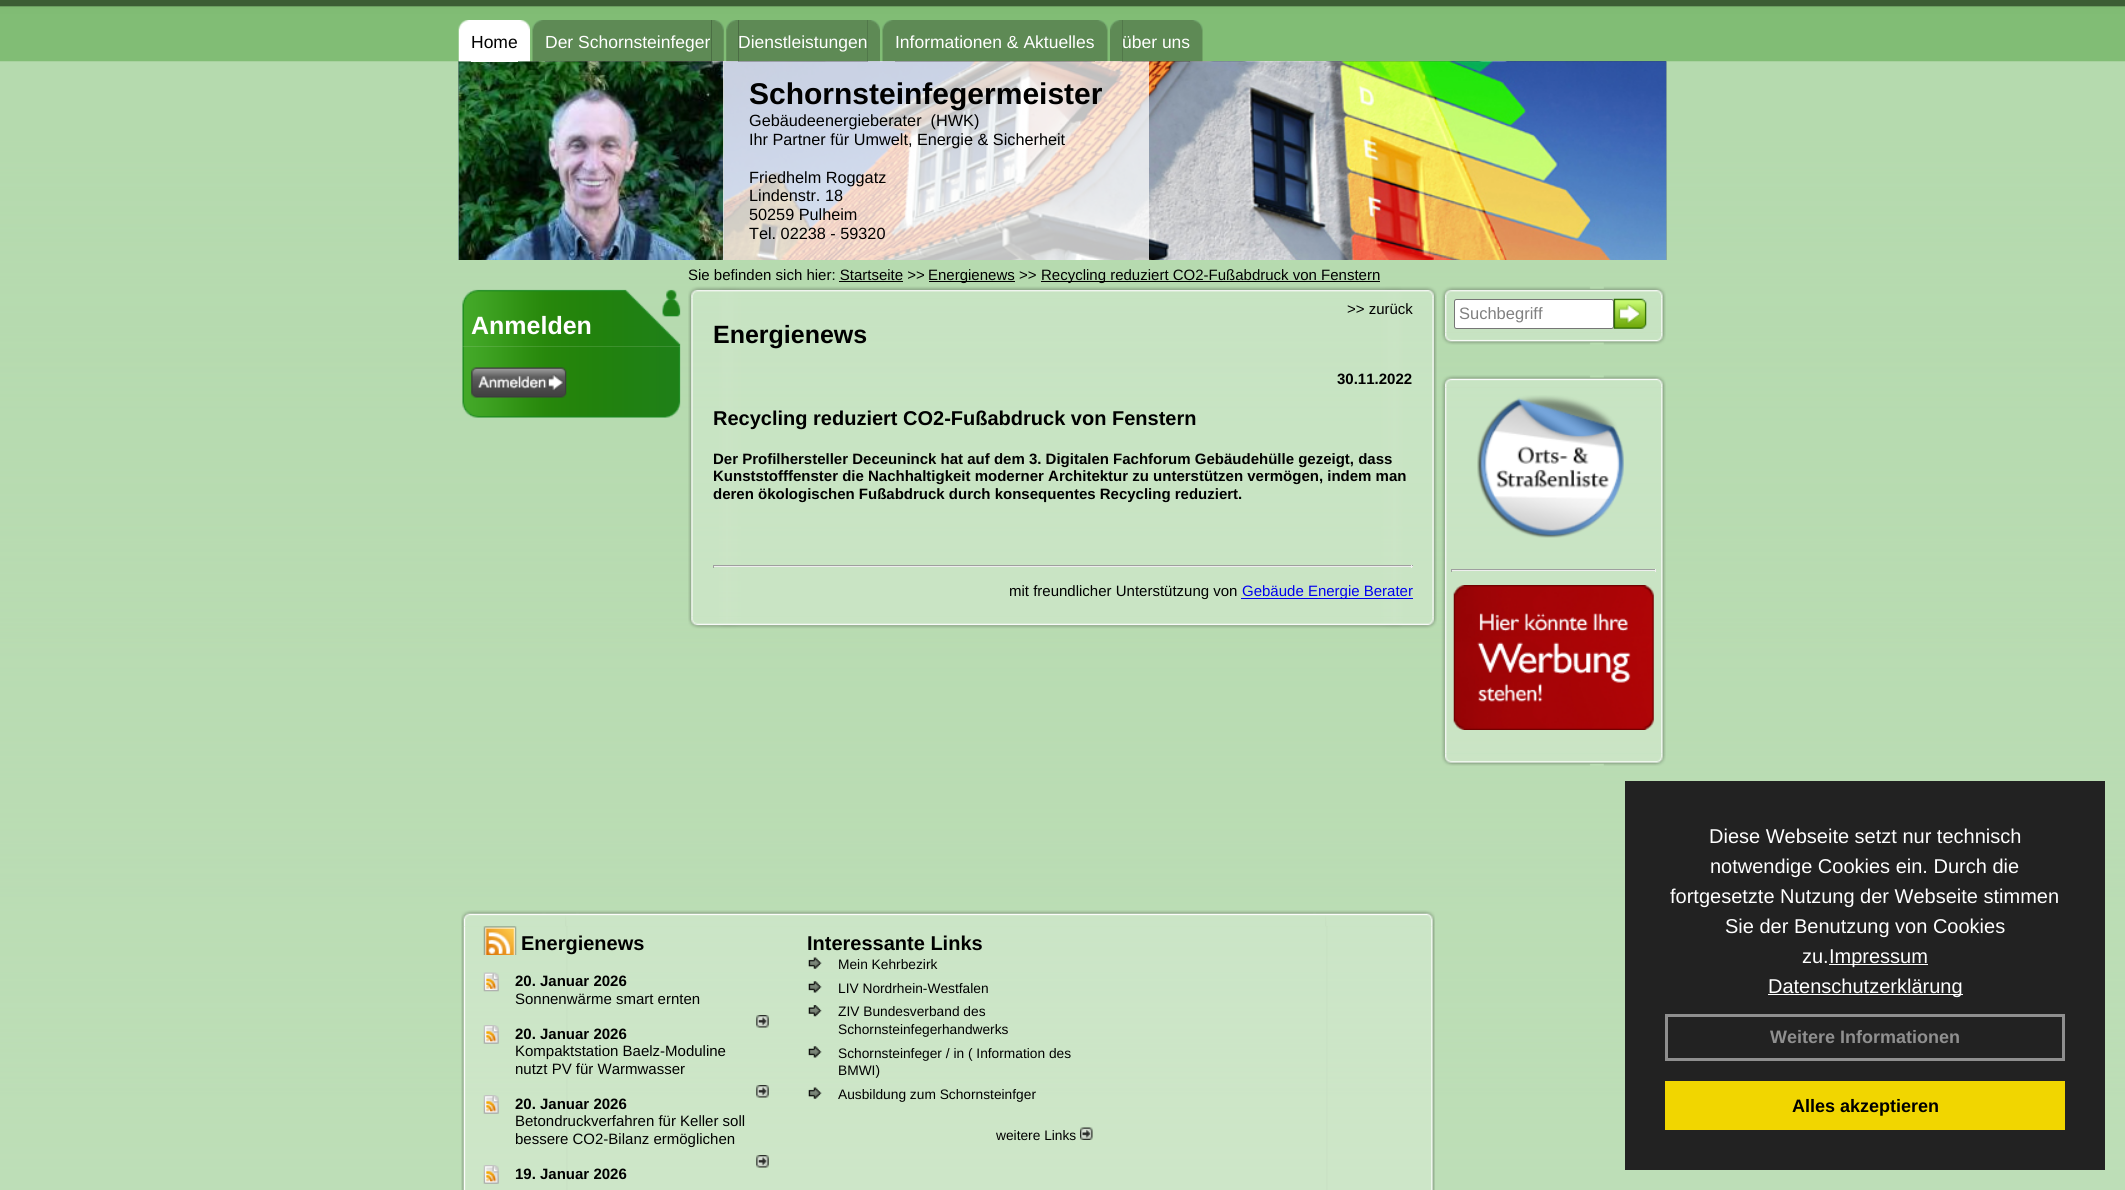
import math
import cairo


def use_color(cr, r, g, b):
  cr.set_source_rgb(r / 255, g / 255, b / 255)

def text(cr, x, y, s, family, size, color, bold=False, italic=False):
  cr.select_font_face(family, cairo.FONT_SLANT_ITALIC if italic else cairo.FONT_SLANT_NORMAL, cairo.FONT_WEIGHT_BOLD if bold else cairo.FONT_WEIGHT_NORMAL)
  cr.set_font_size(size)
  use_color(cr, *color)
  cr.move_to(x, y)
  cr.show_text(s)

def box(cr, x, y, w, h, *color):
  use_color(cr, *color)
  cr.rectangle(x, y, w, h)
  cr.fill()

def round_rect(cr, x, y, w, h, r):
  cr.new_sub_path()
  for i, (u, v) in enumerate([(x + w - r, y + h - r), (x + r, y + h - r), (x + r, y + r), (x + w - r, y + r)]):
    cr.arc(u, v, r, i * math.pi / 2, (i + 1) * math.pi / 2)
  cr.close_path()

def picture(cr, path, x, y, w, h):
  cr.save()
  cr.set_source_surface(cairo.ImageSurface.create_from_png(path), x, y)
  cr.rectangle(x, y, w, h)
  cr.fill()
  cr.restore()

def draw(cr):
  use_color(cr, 255, 255, 255)
  cr.paint()
  picture(cr, "img_01.png", 0, 61, 2125, 1129)
  picture(cr, "img_02.png", 0, 0, 2125, 62)
  picture(cr, "img_13.png", 458, 61, 1209, 199)
  picture(cr, "img_14.png", 458, 61, 1209, 199)
  box(cr, 459, 61, 265, 199, 255, 255, 255)
  picture(cr, "img_15.png", 458, 61, 266, 199)
  picture(cr, "img_03.png", 458, 20, 13, 42)
  box(cr, 471, 20, 47, 42, 255, 255, 255)
  picture(cr, "img_05.png", 532, 20, 13, 42)
  cr.set_source_rgba(0, 0, 0, 0.27)
  cr.rectangle(545, 20, 167, 42)
  cr.fill()
  cr.set_source_rgba(1, 1, 1, 0.75)
  cr.rectangle(723, 61, 426, 199)
  cr.fill()
  picture(cr, "img_06.png", 711, 20, 13, 42)
  picture(cr, "img_07.png", 726, 20, 13, 42)
  cr.set_source_rgba(0, 0, 0, 0.27)
  cr.rectangle(738, 20, 130, 42)
  cr.fill()
  picture(cr, "img_08.png", 867, 20, 13, 42)
  picture(cr, "img_09.png", 882, 20, 13, 42)
  cr.rectangle(895, 20, 200, 42)
  cr.fill()
  picture(cr, "img_10.png", 1095, 20, 13, 42)
  picture(cr, "img_11.png", 1110, 20, 13, 42)
  cr.rectangle(1122, 20, 68, 42)
  cr.fill()
  picture(cr, "img_12.png", 1190, 20, 13, 42)
  box(cr, 929, 281, 86, 1, 0, 0, 0)
  box(cr, 1041, 281, 339, 1, 0, 0, 0)
  box(cr, 839, 281, 64, 1, 0, 0, 0)
  picture(cr, "img_16.png", 462, 289, 219, 58)
  picture(cr, "img_17.png", 462, 346, 219, 54)
  picture(cr, "img_18.png", 471, 367, 96, 31)
  picture(cr, "img_19.png", 462, 400, 219, 18)
  picture(cr, "img_20.png", 688, 286, 749, 13)
  picture(cr, "img_21.png", 688, 298, 749, 319)
  box(cr, 713, 565, 700, 1, 159, 159, 159)
  box(cr, 1411, 565, 1, 3, 238, 238, 238)
  box(cr, 713, 566, 700, 1, 238, 238, 238)
  box(cr, 713, 565, 1, 3, 159, 159, 159)
  box(cr, 1241, 598, 172, 1, 0, 0, 238)
  picture(cr, "img_22.png", 688, 616, 749, 13)
  picture(cr, "img_23.png", 1441, 286, 225, 13)
  picture(cr, "img_24.png", 1441, 298, 225, 35)
  use_color(cr, 255, 255, 255)
  round_rect(cr, 1454.5, 299.5, 159, 29, 2)
  cr.fill_preserve()
  use_color(cr, 118, 118, 118)
  cr.set_line_width(1)
  cr.stroke()
  picture(cr, "img_25.png", 1613, 298, 34, 31)
  picture(cr, "img_26.png", 1441, 332, 225, 13)
  picture(cr, "img_27.png", 1441, 375, 225, 13)
  picture(cr, "img_28.png", 1441, 387, 225, 367)
  picture(cr, "img_29.png", 1477, 395, 147, 143)
  box(cr, 1451, 569, 205, 1, 159, 159, 159)
  box(cr, 1655, 569, 1, 3, 238, 238, 238)
  box(cr, 1451, 570, 205, 1, 238, 238, 238)
  box(cr, 1451, 569, 1, 3, 159, 159, 159)
  picture(cr, "img_30.png", 1453, 585, 201, 145)
  picture(cr, "img_31.png", 1441, 753, 225, 13)
  picture(cr, "img_32.png", 461, 910, 974, 17)
  picture(cr, "img_33.png", 461, 926, 974, 264)
  picture(cr, "img_34.png", 483, 926, 34, 29)
  picture(cr, "img_35.png", 483, 972, 16, 20)
  picture(cr, "img_36.png", 756, 1015, 13, 13)
  picture(cr, "img_37.png", 483, 1025, 16, 19)
  picture(cr, "img_38.png", 756, 1085, 13, 13)
  picture(cr, "img_39.png", 483, 1095, 16, 19)
  picture(cr, "img_40.png", 756, 1155, 13, 13)
  picture(cr, "img_41.png", 483, 1165, 16, 19)
  picture(cr, "img_42.png", 808, 957, 14, 12)
  picture(cr, "img_43.png", 808, 981, 14, 12)
  picture(cr, "img_44.png", 808, 1005, 14, 12)
  picture(cr, "img_45.png", 808, 1046, 14, 12)
  picture(cr, "img_46.png", 808, 1087, 14, 12)
  picture(cr, "img_47.png", 1080, 1127, 13, 13)
  box(cr, 1625, 781, 480, 389, 34, 34, 34)
  box(cr, 1829, 964, 99, 1, 255, 255, 255)
  box(cr, 1768, 994, 195, 1, 255, 255, 255)
  cr.rectangle(1666.5, 1015.5, 397, 44)
  use_color(cr, 143, 143, 143)
  cr.set_line_width(3)
  cr.stroke()
  box(cr, 1665, 1081, 400, 49, 241, 214, 0)
  text(cr, 471, 48, "Home", "Liberation Sans", 17.5, (0, 0, 0))
  picture(cr, "img_04.png", 517, 20, 13, 42)
  text(cr, 545, 48, "Der Schornsteinfeger", "Liberation Sans", 17.5, (255, 255, 255))
  text(cr, 738, 48, "Dienstleistungen", "Liberation Sans", 17.5, (255, 255, 255))
  text(cr, 895, 48, "Informationen & Aktuelles", "Liberation Sans", 17.5, (255, 255, 255))
  text(cr, 1122, 48, "über uns", "Liberation Sans", 17.5, (255, 255, 255))
  text(cr, 749, 104, "Schornsteinfegermeister", "Liberation Sans", 30, (0, 0, 0), bold=True)
  text(cr, 749, 126, "Gebäudeenergieberater  (HWK)", "Liberation Sans", 16.25, (0, 0, 0))
  text(cr, 749, 145, "Ihr Partner für Umwelt, Energie & Sicherheit", "Liberation Sans", 16.25, (0, 0, 0))
  text(cr, 749, 183, "Friedhelm Roggatz", "Liberation Sans", 16.25, (0, 0, 0))
  text(cr, 749, 201, "Lindenstr. 18", "Liberation Sans", 16.25, (0, 0, 0))
  text(cr, 749, 220, "50259 Pulheim", "Liberation Sans", 16.25, (0, 0, 0))
  text(cr, 749, 239, "Tel. 02238 - 59320", "Liberation Sans", 16.25, (0, 0, 0))
  text(cr, 688, 280, "Sie befinden sich hier: Startseite >>", "Liberation Sans", 15, (0, 0, 0))
  text(cr, 928, 280, "Energienews >>", "Liberation Sans", 15, (0, 0, 0))
  text(cr, 1041, 280, "Recycling reduziert CO2-Fußabdruck von Fenstern", "Liberation Sans", 15, (0, 0, 0))
  text(cr, 471, 334, "Anmelden", "Liberation Sans", 25, (255, 255, 255), bold=True)
  text(cr, 1347, 314, ">> zurück", "Liberation Sans", 15, (0, 0, 0))
  text(cr, 713, 343, "Energienews", "Liberation Sans", 25, (0, 0, 0), bold=True)
  text(cr, 1337, 384, "30.11.2022", "Liberation Sans", 15, (0, 0, 0), bold=True)
  text(cr, 713, 425, "Recycling reduziert CO2-Fußabdruck von Fenstern", "Liberation Sans", 20, (0, 0, 0), bold=True)
  text(cr, 713, 464, "Der Profilhersteller Deceuninck hat auf dem 3. Digitalen Fachforum Gebäudehülle gezeigt, dass", "Liberation Sans", 15, (0, 0, 0), bold=True)
  text(cr, 713, 481, "Kunststofffenster die Nachhaltigkeit moderner Architektur zu unterstützen vermögen, indem man", "Liberation Sans", 15, (0, 0, 0), bold=True)
  text(cr, 713, 499, "deren ökologischen Fußabdruck durch konsequentes Recycling reduziert.", "Liberation Sans", 15, (0, 0, 0), bold=True)
  text(cr, 1009, 596, "mit freundlicher Unterstützung von", "Liberation Sans", 15, (0, 0, 0))
  text(cr, 1242, 596, "Gebäude Energie Berater", "Liberation Sans", 15, (0, 0, 238))
  text(cr, 1459, 319, "Suchbegriff", "Liberation Sans", 16.5, (128, 128, 128))
  text(cr, 521, 950, "Energienews", "Liberation Sans", 20, (0, 0, 0), bold=True)
  text(cr, 515, 986, "20. Januar 2026", "Liberation Sans", 15, (0, 0, 0), bold=True)
  text(cr, 515, 1004, "Sonnenwärme smart ernten", "Liberation Sans", 15, (0, 0, 0))
  text(cr, 515, 1039, "20. Januar 2026", "Liberation Sans", 15, (0, 0, 0), bold=True)
  text(cr, 515, 1056, "Kompaktstation Baelz-Moduline", "Liberation Sans", 15, (0, 0, 0))
  text(cr, 515, 1074, "nutzt PV für Warmwasser", "Liberation Sans", 15, (0, 0, 0))
  text(cr, 515, 1109, "20. Januar 2026", "Liberation Sans", 15, (0, 0, 0), bold=True)
  text(cr, 515, 1126, "Betondruckverfahren für Keller soll", "Liberation Sans", 15, (0, 0, 0))
  text(cr, 515, 1144, "bessere CO2-Bilanz ermöglichen", "Liberation Sans", 15, (0, 0, 0))
  text(cr, 515, 1179, "19. Januar 2026", "Liberation Sans", 15, (0, 0, 0), bold=True)
  text(cr, 807, 950, "Interessante Links", "Liberation Sans", 20, (0, 0, 0), bold=True)
  text(cr, 838, 969, "Mein Kehrbezirk", "Liberation Sans", 13.75, (0, 0, 0))
  text(cr, 838, 993, "LIV Nordrhein-Westfalen", "Liberation Sans", 13.75, (0, 0, 0))
  text(cr, 838, 1016, "ZIV Bundesverband des", "Liberation Sans", 13.75, (0, 0, 0))
  text(cr, 838, 1034, "Schornsteinfegerhandwerks", "Liberation Sans", 13.75, (0, 0, 0))
  text(cr, 838, 1058, "Schornsteinfeger / in ( Information des", "Liberation Sans", 13.75, (0, 0, 0))
  text(cr, 838, 1075, "BMWI)", "Liberation Sans", 13.75, (0, 0, 0))
  text(cr, 838, 1099, "Ausbildung zum Schornsteinfger", "Liberation Sans", 13.75, (0, 0, 0))
  text(cr, 996, 1140, "weitere Links", "Liberation Sans", 13.75, (0, 0, 0))
  text(cr, 1709, 843, "Diese Webseite setzt nur technisch", "Liberation Sans", 20, (255, 255, 255))
  text(cr, 1710, 873, "notwendige Cookies ein. Durch die", "Liberation Sans", 20, (255, 255, 255))
  text(cr, 1670, 903, "fortgesetzte Nutzung der Webseite stimmen", "Liberation Sans", 20, (255, 255, 255))
  text(cr, 1725, 933, "Sie der Benutzung von Cookies", "Liberation Sans", 20, (255, 255, 255))
  text(cr, 1802, 963, "zu.", "Liberation Sans", 20, (255, 255, 255))
  text(cr, 1829, 963, "Impressum", "Liberation Sans", 20, (255, 255, 255))
  text(cr, 1768, 993, "Datenschutzerklärung", "Liberation Sans", 20, (255, 255, 255))
  text(cr, 1770, 1043, "Weitere Informationen", "Liberation Sans", 18, (143, 143, 143), bold=True)
  text(cr, 1792, 1112, "Alles akzeptieren", "Liberation Sans", 18, (0, 0, 0), bold=True)


surface = cairo.ImageSurface(cairo.FORMAT_RGB24, 2125, 1190)
cr = cairo.Context(surface)
options = cairo.FontOptions()
options.set_hint_metrics(cairo.HINT_METRICS_OFF)
options.set_hint_style(cairo.HINT_STYLE_NONE)
cr.set_font_options(options)
cr.set_miter_limit(4)
draw(cr)
surface.write_to_png("out.png")
